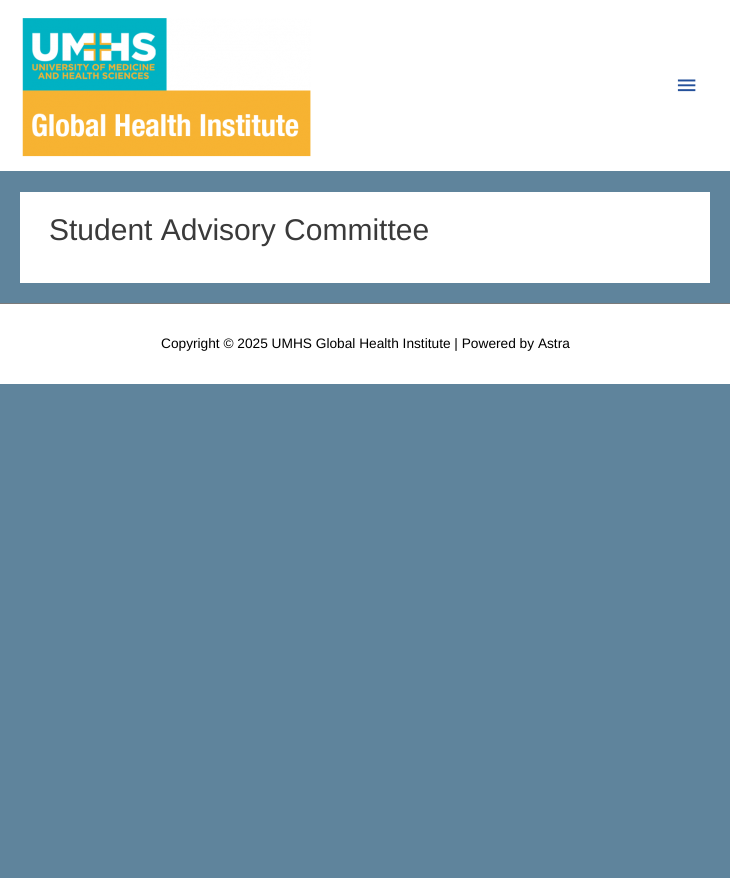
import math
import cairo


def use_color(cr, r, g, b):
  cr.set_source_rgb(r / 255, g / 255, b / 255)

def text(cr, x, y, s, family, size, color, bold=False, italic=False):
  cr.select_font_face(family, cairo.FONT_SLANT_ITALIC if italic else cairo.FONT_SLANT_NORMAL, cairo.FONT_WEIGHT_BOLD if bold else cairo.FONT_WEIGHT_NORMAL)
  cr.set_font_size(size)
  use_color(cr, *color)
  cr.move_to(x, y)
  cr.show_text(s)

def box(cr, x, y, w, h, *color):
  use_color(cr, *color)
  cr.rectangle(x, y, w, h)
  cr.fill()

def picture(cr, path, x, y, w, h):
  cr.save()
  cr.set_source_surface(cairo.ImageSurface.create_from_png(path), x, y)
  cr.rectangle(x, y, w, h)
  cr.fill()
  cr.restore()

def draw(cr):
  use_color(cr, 95, 132, 156)
  cr.paint()
  box(cr, 0, 0, 730, 171, 255, 255, 255)
  picture(cr, "img_01.png", 22, 18, 289, 139)
  picture(cr, "img_02.png", 677, 79, 19, 13)
  box(cr, 20, 192, 690, 91, 255, 255, 255)
  box(cr, 0, 303, 730, 1, 122, 122, 122)
  box(cr, 0, 304, 730, 80, 255, 255, 255)
  text(cr, 49, 240, "Student Advisory Committee", "Liberation Sans", 30, (58, 58, 58))
  text(cr, 161, 348, "Copyright © 2025 UMHS Global Health Institute | Powered by Astra", "Liberation Sans", 13.7, (0, 0, 0))


surface = cairo.ImageSurface(cairo.FORMAT_RGB24, 730, 878)
cr = cairo.Context(surface)
options = cairo.FontOptions()
options.set_hint_metrics(cairo.HINT_METRICS_OFF)
options.set_hint_style(cairo.HINT_STYLE_NONE)
cr.set_font_options(options)
cr.set_miter_limit(4)
draw(cr)
surface.write_to_png("out.png")
